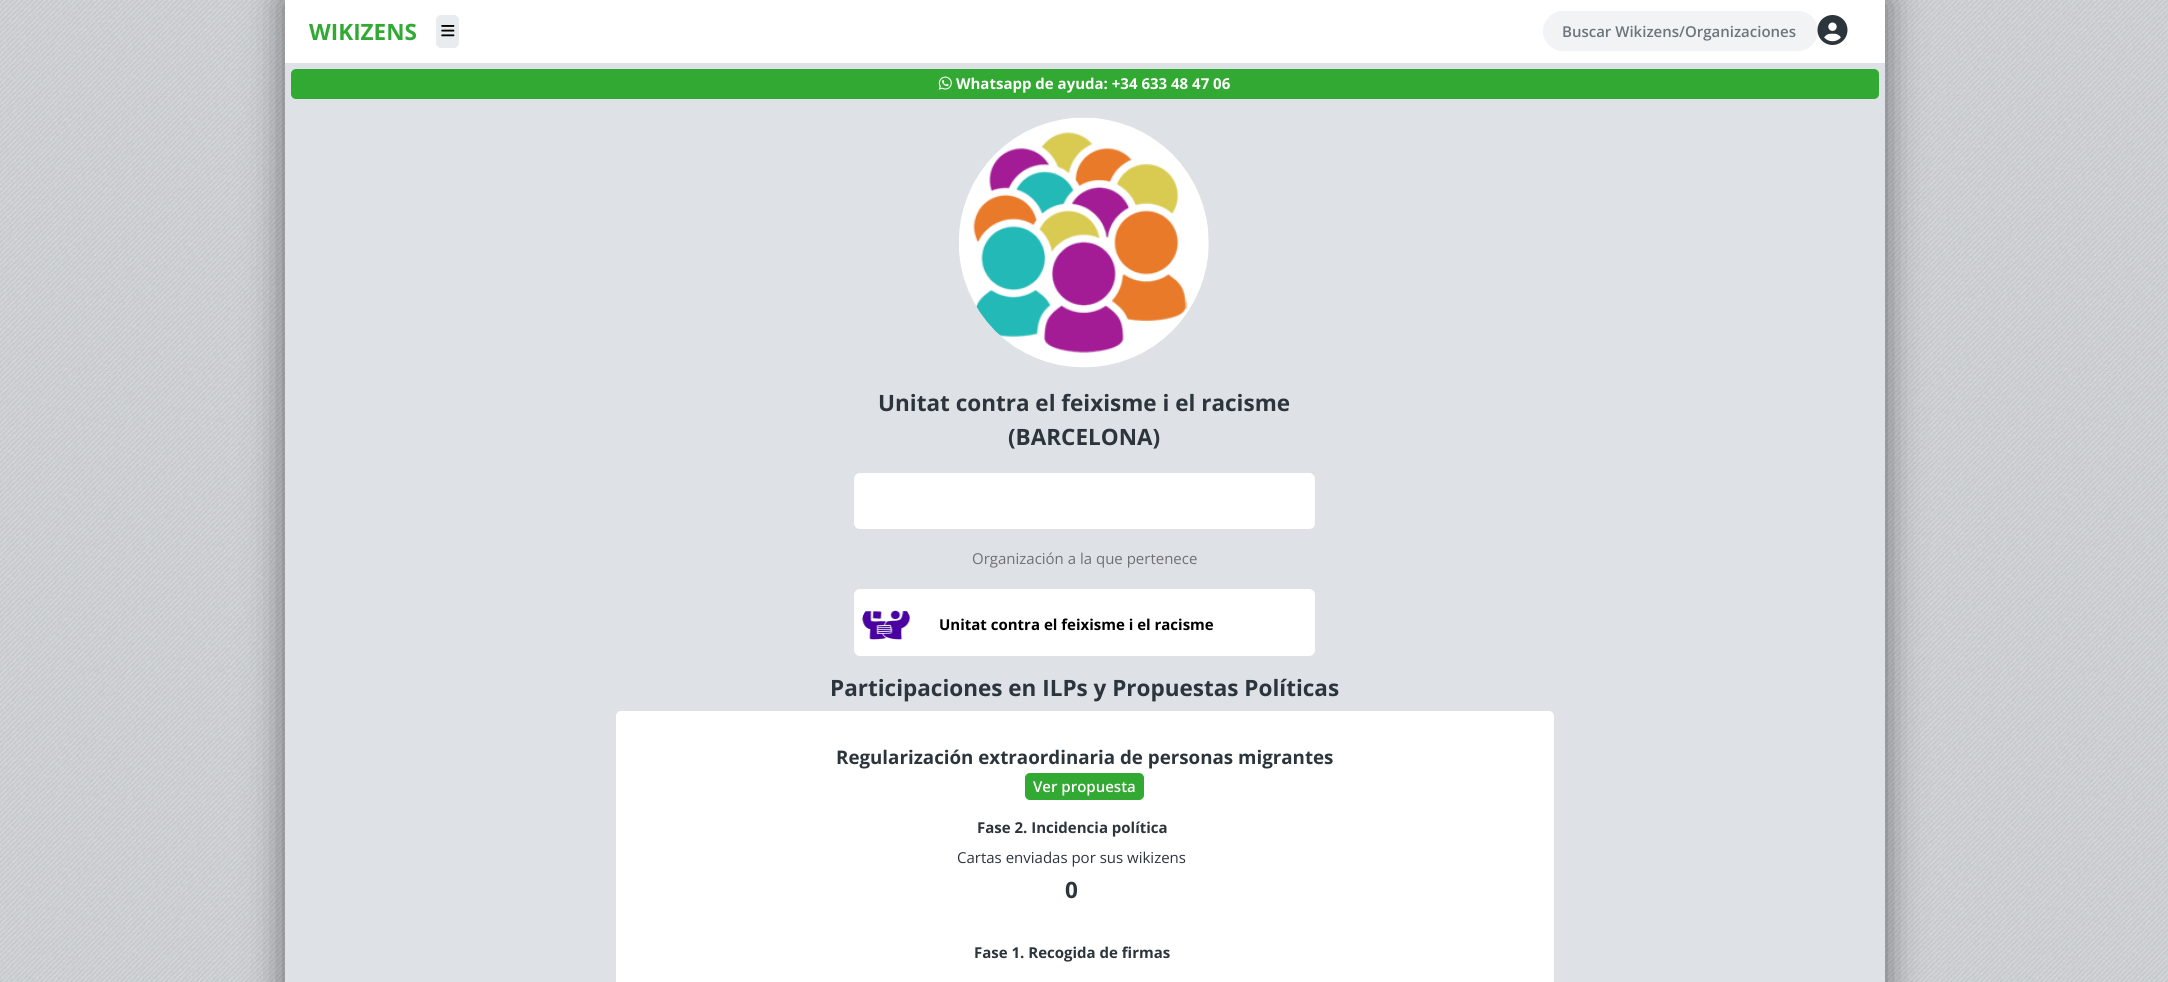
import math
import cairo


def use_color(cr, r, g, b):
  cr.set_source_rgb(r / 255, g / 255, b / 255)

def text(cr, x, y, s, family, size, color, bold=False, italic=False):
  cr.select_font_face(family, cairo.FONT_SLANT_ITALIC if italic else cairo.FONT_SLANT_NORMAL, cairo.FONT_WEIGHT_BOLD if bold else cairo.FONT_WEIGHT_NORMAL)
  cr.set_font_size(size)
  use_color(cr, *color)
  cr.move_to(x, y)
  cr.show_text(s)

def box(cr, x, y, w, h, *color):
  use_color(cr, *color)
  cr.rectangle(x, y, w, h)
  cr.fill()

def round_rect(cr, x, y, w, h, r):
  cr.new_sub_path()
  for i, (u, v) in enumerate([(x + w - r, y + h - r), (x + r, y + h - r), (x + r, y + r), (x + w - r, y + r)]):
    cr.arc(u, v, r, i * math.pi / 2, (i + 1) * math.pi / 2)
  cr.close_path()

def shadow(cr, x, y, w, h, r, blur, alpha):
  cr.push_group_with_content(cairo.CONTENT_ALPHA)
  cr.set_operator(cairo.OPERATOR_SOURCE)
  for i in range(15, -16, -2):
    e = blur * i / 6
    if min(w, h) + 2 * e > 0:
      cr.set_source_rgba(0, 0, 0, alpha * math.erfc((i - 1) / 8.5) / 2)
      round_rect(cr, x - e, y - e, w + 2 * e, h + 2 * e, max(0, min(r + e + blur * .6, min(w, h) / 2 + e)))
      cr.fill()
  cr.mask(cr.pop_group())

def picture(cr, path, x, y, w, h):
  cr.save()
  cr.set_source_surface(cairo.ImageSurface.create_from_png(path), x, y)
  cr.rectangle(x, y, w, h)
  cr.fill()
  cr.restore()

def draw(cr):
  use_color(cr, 222, 226, 230)
  cr.paint()
  picture(cr, "img_01.png", 0, 0, 2168, 982)
  use_color(cr, 0, 0, 0)
  shadow(cr, 285, 0, 1600, 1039, 0, 19, 0.5)
  box(cr, 285, 63, 1600, 919, 222, 226, 230)
  box(cr, 285, 0, 1600, 63, 255, 255, 255)
  use_color(cr, 233, 236, 239)
  round_rect(cr, 436.5, 15.5, 22, 32, 4.5)
  cr.fill_preserve()
  cr.set_line_width(1)
  cr.stroke()
  picture(cr, "img_02.png", 441, 25, 14, 12)
  use_color(cr, 242, 243, 244)
  round_rect(cr, 1543.5, 11.5, 274, 39, 19.5)
  cr.fill_preserve()
  cr.stroke()
  picture(cr, "img_03.png", 1817, 15, 31, 30)
  use_color(cr, 50, 169, 50)
  round_rect(cr, 291, 69, 1588, 30, 5)
  cr.fill()
  picture(cr, "img_04.png", 938, 76, 14, 14)
  picture(cr, "img_05.png", 959, 117, 250, 251)
  use_color(cr, 255, 255, 255)
  round_rect(cr, 854, 473, 461, 56, 6)
  cr.fill()
  round_rect(cr, 854, 589, 461, 67, 6)
  cr.fill()
  picture(cr, "img_06.png", 862, 610, 49, 30)
  round_rect(cr, 616, 711, 938, 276, 5)
  cr.fill()
  use_color(cr, 50, 169, 50)
  round_rect(cr, 1025.5, 773.5, 118, 26, 4.5)
  cr.fill_preserve()
  cr.stroke()
  text(cr, 309, 40, "WIKIZENS", "Open Sans", 22.5, (50, 169, 50), bold=True)
  text(cr, 1562, 37, "Buscar Wikizens/Organizaciones", "Open Sans SemiBold", 15, (108, 117, 125))
  text(cr, 956, 89, "Whatsapp de ayuda: +34 633 48 47 06", "Open Sans", 15, (255, 255, 255), bold=True)
  text(cr, 878, 411, "Unitat contra el feixisme i el racisme", "Open Sans", 22.5, (45, 53, 60), bold=True)
  text(cr, 1008, 445, "(BARCELONA)", "Open Sans", 22.5, (45, 53, 60), bold=True)
  text(cr, 972, 564, "Organización a la que pertenece", "Open Sans", 15, (111, 113, 115))
  text(cr, 939, 630, "Unitat contra el feixisme i el racisme", "Open Sans", 15, (0, 0, 0), bold=True)
  text(cr, 830, 696, "Participaciones en ILPs y Propuestas Políticas", "Open Sans", 22.5, (45, 53, 60), bold=True)
  text(cr, 836, 764, "Regularización extraordinaria de personas migrantes", "Open Sans", 18.75, (45, 53, 60), bold=True)
  text(cr, 1033, 792, "Ver propuesta", "Open Sans SemiBold", 15, (255, 255, 255))
  text(cr, 977, 833, "Fase 2. Incidencia política", "Open Sans", 15, (45, 53, 60), bold=True)
  text(cr, 957, 863, "Cartas enviadas por sus wikizens", "Open Sans", 15, (45, 53, 60))
  text(cr, 1065, 898, "0", "Open Sans", 22.5, (45, 53, 60), bold=True)
  text(cr, 974, 958, "Fase 1. Recogida de firmas", "Open Sans", 15, (45, 53, 60), bold=True)


surface = cairo.ImageSurface(cairo.FORMAT_RGB24, 2168, 982)
cr = cairo.Context(surface)
options = cairo.FontOptions()
options.set_hint_metrics(cairo.HINT_METRICS_OFF)
options.set_hint_style(cairo.HINT_STYLE_NONE)
cr.set_font_options(options)
cr.set_miter_limit(4)
draw(cr)
surface.write_to_png("out.png")
